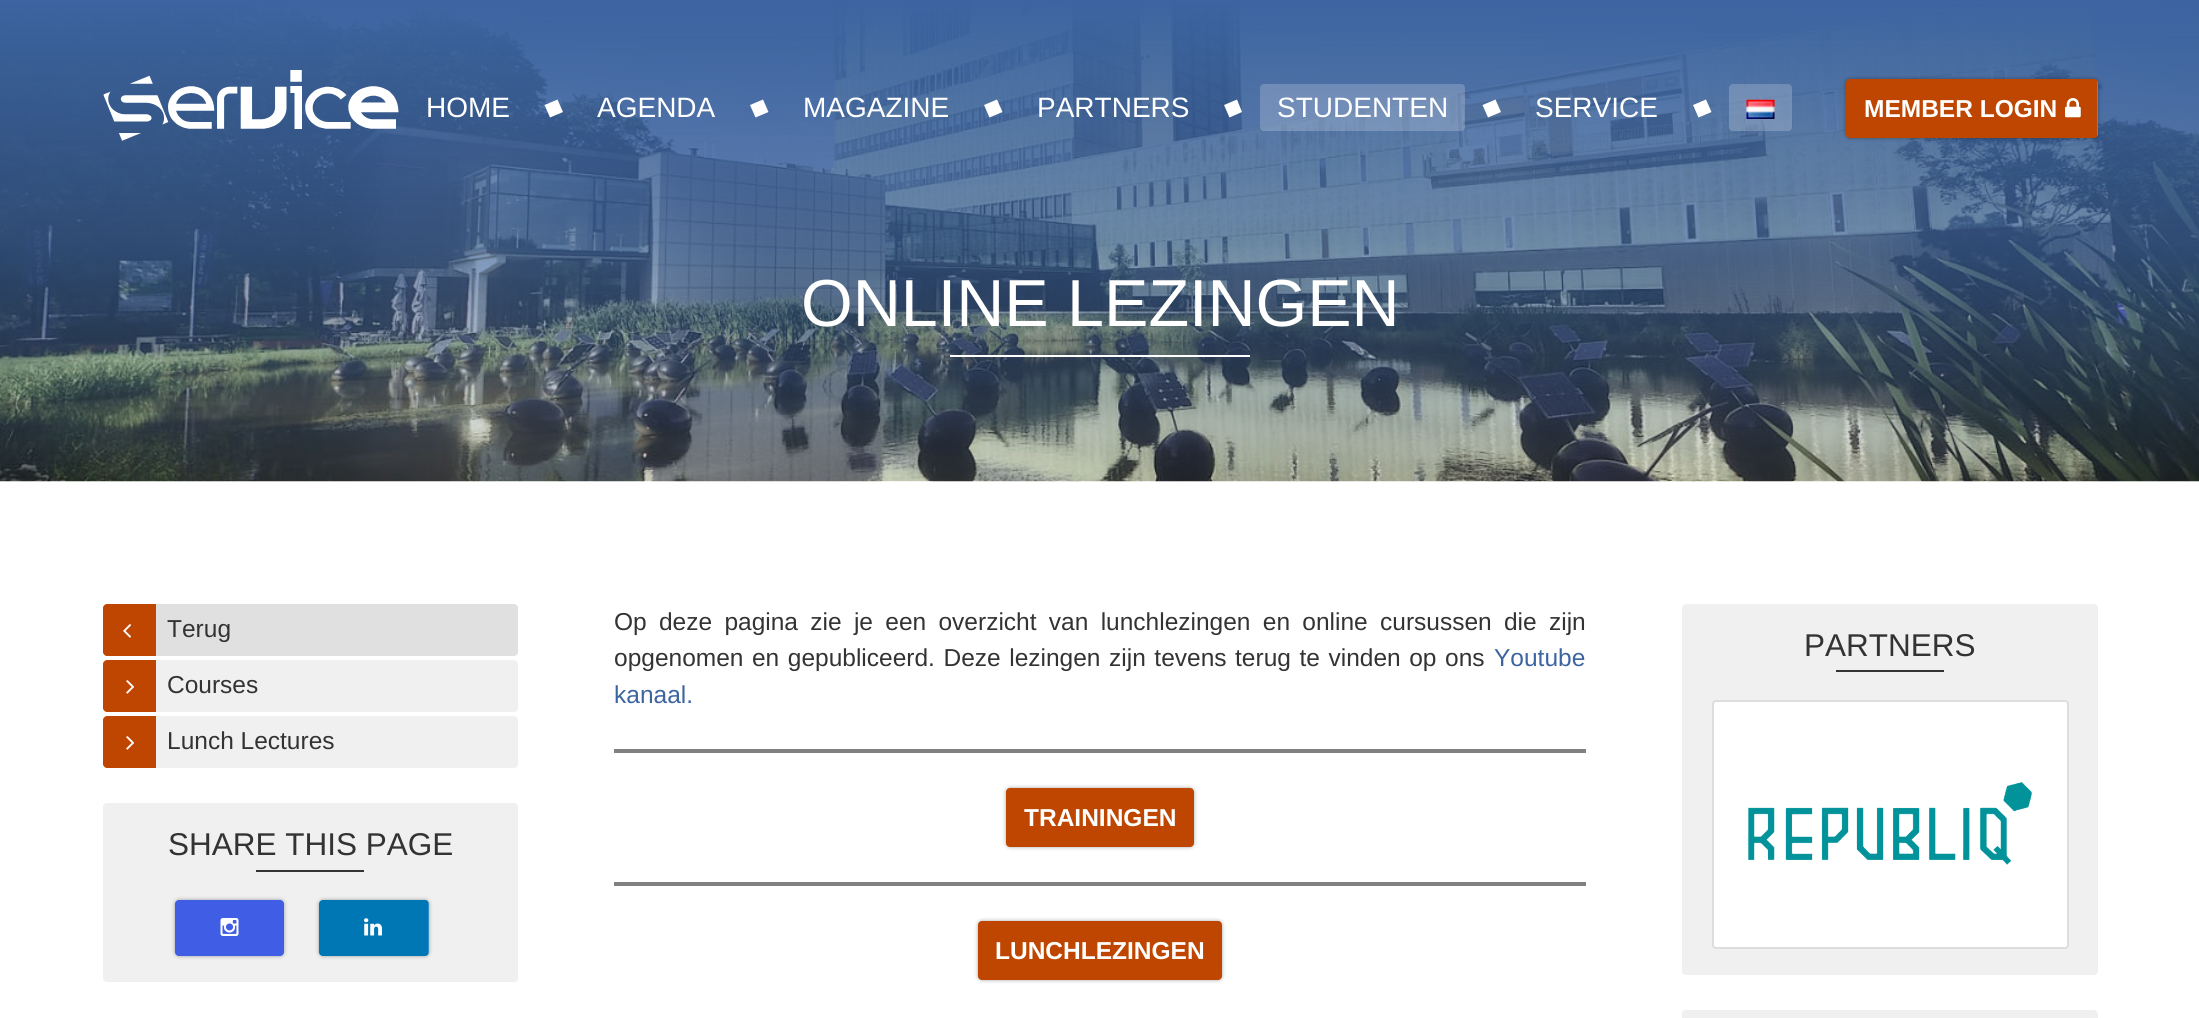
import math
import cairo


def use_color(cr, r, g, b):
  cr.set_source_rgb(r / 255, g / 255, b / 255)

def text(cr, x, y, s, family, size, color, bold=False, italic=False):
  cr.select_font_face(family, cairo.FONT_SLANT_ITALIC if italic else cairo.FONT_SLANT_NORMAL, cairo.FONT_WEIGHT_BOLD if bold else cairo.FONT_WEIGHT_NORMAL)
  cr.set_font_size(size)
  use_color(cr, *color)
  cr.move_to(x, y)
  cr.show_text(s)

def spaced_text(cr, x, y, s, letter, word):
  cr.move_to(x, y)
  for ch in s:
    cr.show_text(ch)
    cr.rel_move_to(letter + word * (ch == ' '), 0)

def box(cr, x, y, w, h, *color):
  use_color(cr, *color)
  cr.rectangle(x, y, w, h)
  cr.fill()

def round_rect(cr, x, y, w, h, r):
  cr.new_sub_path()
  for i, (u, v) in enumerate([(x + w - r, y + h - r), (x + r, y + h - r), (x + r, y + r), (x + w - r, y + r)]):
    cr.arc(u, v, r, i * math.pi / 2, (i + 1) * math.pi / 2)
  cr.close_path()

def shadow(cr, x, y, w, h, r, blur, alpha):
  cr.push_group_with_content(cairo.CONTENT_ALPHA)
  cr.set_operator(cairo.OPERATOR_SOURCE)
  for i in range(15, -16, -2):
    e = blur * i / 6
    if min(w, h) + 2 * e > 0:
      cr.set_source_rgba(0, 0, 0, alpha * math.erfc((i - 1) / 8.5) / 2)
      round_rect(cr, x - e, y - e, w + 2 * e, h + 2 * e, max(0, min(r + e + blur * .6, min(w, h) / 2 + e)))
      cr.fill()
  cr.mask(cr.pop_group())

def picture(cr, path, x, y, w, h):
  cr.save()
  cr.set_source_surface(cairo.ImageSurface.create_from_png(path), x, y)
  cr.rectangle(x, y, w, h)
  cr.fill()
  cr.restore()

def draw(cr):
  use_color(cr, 255, 255, 255)
  cr.paint()
  picture(cr, "img_01.png", 0, 0, 2199, 482)
  picture(cr, "img_02.png", 103, 70, 296, 71)
  use_color(cr, 255, 255, 255)
  cr.new_path()
  cr.move_to(544.5, 105)
  cr.line_to(557.5, 99.5)
  cr.line_to(563, 112)
  cr.line_to(550, 117.5)
  cr.close_path()
  cr.fill()
  cr.new_path()
  cr.move_to(750, 105)
  cr.line_to(763, 99.5)
  cr.line_to(768.5, 112)
  cr.line_to(755.5, 117.5)
  cr.close_path()
  cr.fill()
  cr.new_path()
  cr.move_to(984, 105)
  cr.line_to(997, 99.5)
  cr.line_to(1002.5, 112)
  cr.line_to(989.5, 117.5)
  cr.close_path()
  cr.fill()
  cr.new_path()
  cr.move_to(1224, 105)
  cr.line_to(1237, 99.5)
  cr.line_to(1242, 112)
  cr.line_to(1229.5, 117.5)
  cr.close_path()
  cr.fill()
  cr.set_source_rgba(1, 1, 1, 0.2)
  round_rect(cr, 1260, 84, 205, 47, 4)
  cr.fill()
  use_color(cr, 255, 255, 255)
  cr.new_path()
  cr.move_to(1482.5, 105)
  cr.line_to(1495.5, 99.5)
  cr.line_to(1501, 112)
  cr.line_to(1488, 117.5)
  cr.close_path()
  cr.fill()
  cr.new_path()
  cr.move_to(1693, 105)
  cr.line_to(1706, 99.5)
  cr.line_to(1711.5, 112)
  cr.line_to(1698.5, 117.5)
  cr.close_path()
  cr.fill()
  cr.set_source_rgba(1, 1, 1, 0.2)
  round_rect(cr, 1729, 84, 63, 47, 4)
  cr.fill()
  picture(cr, "img_03.png", 1746, 99, 29, 20)
  use_color(cr, 0, 0, 0)
  shadow(cr, 1846, 79, 252, 59, 4, 2, 0.35)
  use_color(cr, 190, 70, 0)
  round_rect(cr, 1846, 79, 252, 59, 4)
  cr.fill()
  picture(cr, "img_04.png", 2065, 98, 16, 20)
  cr.save()
  round_rect(cr, 1846, 79, 252, 59, 4)
  cr.clip()
  cr.set_source_rgba(1, 1, 1, 0.2)
  cr.rectangle(2097, 79, 1, 59)
  cr.fill()
  cr.restore()
  box(cr, 950, 355, 300, 2, 255, 255, 255)
  use_color(cr, 224, 224, 224)
  round_rect(cr, 103, 604, 415, 52, 4)
  cr.fill()
  use_color(cr, 190, 70, 0)
  cr.new_path()
  cr.move_to(107, 604)
  cr.line_to(156, 604)
  cr.line_to(156, 656)
  cr.line_to(107, 656)
  cr.curve_to(105, 656, 103, 654, 103, 652)
  cr.line_to(103, 608)
  cr.curve_to(103, 606, 105, 604, 107, 604)
  cr.close_path()
  cr.fill()
  picture(cr, "img_05.png", 123, 624, 8, 14)
  use_color(cr, 240, 240, 240)
  round_rect(cr, 103, 660, 415, 52, 4)
  cr.fill()
  use_color(cr, 190, 70, 0)
  cr.new_path()
  cr.move_to(107, 660)
  cr.line_to(156, 660)
  cr.line_to(156, 712)
  cr.line_to(107, 712)
  cr.curve_to(105, 712, 103, 710, 103, 708)
  cr.line_to(103, 664)
  cr.curve_to(103, 662, 105, 660, 107, 660)
  cr.close_path()
  cr.fill()
  picture(cr, "img_06.png", 126, 680, 9, 14)
  use_color(cr, 240, 240, 240)
  round_rect(cr, 103, 716, 415, 52, 4)
  cr.fill()
  use_color(cr, 190, 70, 0)
  cr.new_path()
  cr.move_to(107, 716)
  cr.line_to(156, 716)
  cr.line_to(156, 768)
  cr.line_to(107, 768)
  cr.curve_to(105, 768, 103, 766, 103, 764)
  cr.line_to(103, 720)
  cr.curve_to(103, 718, 105, 716, 107, 716)
  cr.close_path()
  cr.fill()
  picture(cr, "img_06.png", 126, 736, 9, 14)
  use_color(cr, 240, 240, 240)
  round_rect(cr, 103, 803, 415, 179, 4)
  cr.fill()
  box(cr, 256, 870, 108, 2, 51, 51, 51)
  use_color(cr, 0, 0, 0)
  shadow(cr, 175, 900, 109, 56, 4, 2, 0.35)
  use_color(cr, 64, 93, 230)
  round_rect(cr, 175, 900, 109, 56, 4)
  cr.fill()
  picture(cr, "img_07.png", 220, 918, 19, 18)
  use_color(cr, 0, 0, 0)
  shadow(cr, 319, 900, 110, 56, 4, 2, 0.35)
  use_color(cr, 0, 119, 181)
  round_rect(cr, 319, 900, 110, 56, 4)
  cr.fill()
  picture(cr, "img_08.png", 364, 918, 18, 18)
  cr.save()
  round_rect(cr, 319, 900, 110, 56, 4)
  cr.clip()
  cr.set_source_rgba(1, 1, 1, 0.2)
  cr.rectangle(428, 900, 1, 56)
  cr.fill()
  cr.restore()
  box(cr, 614, 749, 972, 4, 128, 128, 128)
  use_color(cr, 0, 0, 0)
  shadow(cr, 1006, 788, 188, 59, 4, 2, 0.35)
  use_color(cr, 190, 70, 0)
  round_rect(cr, 1006, 788, 188, 59, 4)
  cr.fill()
  box(cr, 614, 882, 972, 4, 128, 128, 128)
  use_color(cr, 0, 0, 0)
  shadow(cr, 978, 921, 244, 59, 4, 2, 0.35)
  use_color(cr, 190, 70, 0)
  round_rect(cr, 978, 921, 244, 59, 4)
  cr.fill()
  use_color(cr, 240, 240, 240)
  round_rect(cr, 1682, 604, 416, 371, 4)
  cr.fill()
  box(cr, 1836, 670, 108, 2, 51, 51, 51)
  use_color(cr, 255, 255, 255)
  round_rect(cr, 1713, 701, 355, 247, 3)
  cr.fill_preserve()
  use_color(cr, 221, 221, 221)
  cr.stroke()
  picture(cr, "img_09.png", 1748, 782, 284, 83)
  use_color(cr, 240, 240, 240)
  round_rect(cr, 1682, 1010, 416, 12, 4)
  cr.fill()
  text(cr, 426, 117, "HOME", "Liberation Sans", 28, (255, 255, 255))
  text(cr, 597, 117, "AGENDA", "Liberation Sans", 28, (255, 255, 255))
  text(cr, 803, 117, "MAGAZINE", "Liberation Sans", 28, (255, 255, 255))
  text(cr, 1037, 117, "PARTNERS", "Liberation Sans", 28, (255, 255, 255))
  text(cr, 1277, 117, "STUDENTEN", "Liberation Sans", 28, (255, 255, 255))
  text(cr, 1535, 117, "SERVICE", "Liberation Sans", 28, (255, 255, 255))
  text(cr, 1864, 117, "MEMBER LOGIN", "Liberation Sans", 24.5, (255, 255, 255), bold=True)
  text(cr, 801, 326, "ONLINE LEZINGEN", "Liberation Sans", 66.5, (255, 255, 255))
  text(cr, 167, 637, "Terug", "Liberation Sans", 24.5, (51, 51, 51))
  text(cr, 167, 693, "Courses", "Liberation Sans", 24.5, (51, 51, 51))
  text(cr, 167, 749, "Lunch Lectures", "Liberation Sans", 24.5, (51, 51, 51))
  text(cr, 168, 855, "SHARE THIS PAGE", "Liberation Sans", 31.5, (51, 51, 51))
  cr.set_font_size(24.5)
  spaced_text(cr, 614, 630, "Op deze pagina zie je een overzicht van lunchlezingen en online cursussen die zijn", 0, 5.5)
  spaced_text(cr, 614, 666, "opgenomen en gepubliceerd. Deze lezingen zijn tevens terug te vinden op ons", 0, 1.75)
  text(cr, 1494, 666, "Youtube", "Liberation Sans", 24.5, (60, 100, 160))
  text(cr, 614, 703, "kanaal.", "Liberation Sans", 24.5, (60, 100, 160))
  text(cr, 1024, 826, "TRAININGEN", "Liberation Sans", 24.5, (255, 255, 255), bold=True)
  text(cr, 995, 959, "LUNCHLEZINGEN", "Liberation Sans", 24.5, (255, 255, 255), bold=True)
  text(cr, 1804, 656, "PARTNERS", "Liberation Sans", 31.5, (51, 51, 51))


surface = cairo.ImageSurface(cairo.FORMAT_RGB24, 2199, 1018)
cr = cairo.Context(surface)
options = cairo.FontOptions()
options.set_hint_metrics(cairo.HINT_METRICS_OFF)
options.set_hint_style(cairo.HINT_STYLE_NONE)
cr.set_font_options(options)
cr.set_miter_limit(4)
draw(cr)
surface.write_to_png("out.png")
